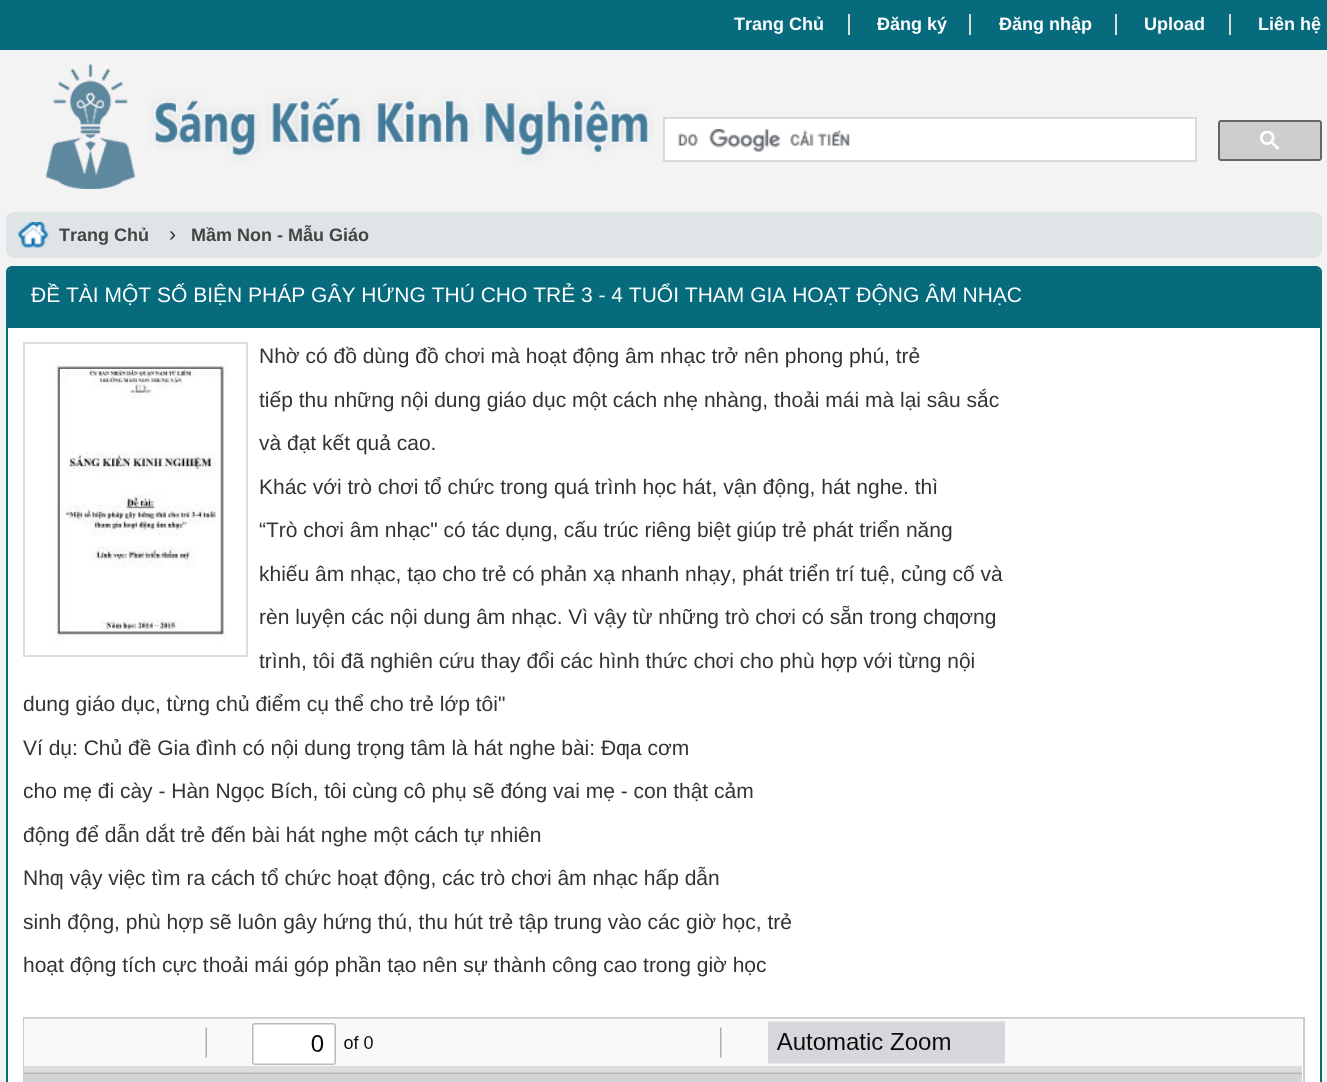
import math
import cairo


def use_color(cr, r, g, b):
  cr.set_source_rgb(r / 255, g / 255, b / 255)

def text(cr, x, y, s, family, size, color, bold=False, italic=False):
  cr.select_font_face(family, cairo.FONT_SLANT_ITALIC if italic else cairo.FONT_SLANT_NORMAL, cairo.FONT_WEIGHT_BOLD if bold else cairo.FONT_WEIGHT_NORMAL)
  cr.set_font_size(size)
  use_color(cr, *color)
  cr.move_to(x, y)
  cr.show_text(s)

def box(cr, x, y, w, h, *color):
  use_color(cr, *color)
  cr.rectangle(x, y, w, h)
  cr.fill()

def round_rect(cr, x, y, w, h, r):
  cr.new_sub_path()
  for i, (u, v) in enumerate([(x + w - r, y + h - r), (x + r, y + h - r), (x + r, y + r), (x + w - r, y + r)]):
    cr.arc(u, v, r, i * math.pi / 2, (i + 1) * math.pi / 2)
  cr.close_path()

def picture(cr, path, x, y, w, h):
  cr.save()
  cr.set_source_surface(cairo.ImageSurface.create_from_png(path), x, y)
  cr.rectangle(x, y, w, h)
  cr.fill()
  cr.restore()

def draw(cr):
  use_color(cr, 243, 243, 243)
  cr.paint()
  box(cr, 0, 0, 1327, 50, 6, 107, 125)
  box(cr, 848, 14, 2, 21, 221, 221, 221)
  box(cr, 969, 14, 2, 21, 221, 221, 221)
  box(cr, 1115, 14, 2, 21, 221, 221, 221)
  box(cr, 1229, 14, 2, 21, 221, 221, 221)
  picture(cr, "img_01.png", 45, 64, 608, 125)
  use_color(cr, 255, 255, 255)
  cr.rectangle(664, 118, 532, 43)
  cr.fill_preserve()
  use_color(cr, 217, 217, 217)
  cr.stroke()
  picture(cr, "img_02.png", 678, 129, 172, 23)
  use_color(cr, 206, 206, 206)
  round_rect(cr, 1219, 121, 102, 39, 2)
  cr.fill_preserve()
  use_color(cr, 102, 102, 102)
  cr.stroke()
  picture(cr, "img_03.png", 1260, 131, 20, 19)
  use_color(cr, 223, 228, 231)
  round_rect(cr, 6, 212, 1316, 46, 8)
  cr.fill()
  picture(cr, "img_04.png", 17, 222, 32, 26)
  use_color(cr, 255, 255, 255)
  round_rect(cr, 7, 267, 1314, 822, 5)
  cr.fill_preserve()
  use_color(cr, 6, 107, 125)
  cr.stroke()
  cr.new_path()
  cr.move_to(13, 267)
  cr.line_to(1315, 267)
  cr.curve_to(1318, 267, 1320, 269, 1320, 272)
  cr.line_to(1320, 326)
  cr.line_to(8, 326)
  cr.line_to(8, 272)
  cr.curve_to(8, 269, 10, 267, 13, 267)
  cr.close_path()
  cr.fill()
  box(cr, 8, 326, 1312, 2, 6, 107, 125)
  cr.rectangle(24, 343, 223, 313)
  use_color(cr, 221, 221, 221)
  cr.stroke()
  picture(cr, "img_05.png", 49, 360, 177, 281)
  cr.rectangle(24, 1018, 1280, 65)
  use_color(cr, 204, 204, 204)
  cr.stroke()
  picture(cr, "img_06.png", 24, 1018, 1278, 64)
  text(cr, 734, 30, "Trang Chủ", "Liberation Sans", 18, (255, 255, 255), bold=True)
  text(cr, 877, 30, "Đăng ký", "Liberation Sans", 18, (255, 255, 255), bold=True)
  text(cr, 999, 30, "Đăng nhập", "Liberation Sans", 18, (255, 255, 255), bold=True)
  text(cr, 1144, 30, "Upload", "Liberation Sans", 18, (255, 255, 255), bold=True)
  text(cr, 1258, 30, "Liên hệ", "Liberation Sans", 18, (255, 255, 255), bold=True)
  text(cr, 59, 241, "Trang Chủ", "Liberation Sans", 18, (68, 68, 68), bold=True)
  text(cr, 169, 241, "›", "Liberation Sans", 21, (51, 51, 51))
  text(cr, 191, 241, "Mầm Non - Mẫu Giáo", "Liberation Sans", 18, (68, 68, 68), bold=True)
  text(cr, 31, 302, "ĐỀ TÀI MỘT SỐ BIỆN PHÁP GÂY HỨNG THÚ CHO TRẺ 3 - 4 TUỔI THAM GIA HOẠT ĐỘNG ÂM NHẠC", "Liberation Sans", 21, (255, 255, 255))
  text(cr, 259, 363, "Nhờ có đồ dùng đồ chơi mà hoạt động âm nhạc trở nên phong phú, trẻ", "Liberation Sans", 21, (51, 51, 51))
  text(cr, 259, 407, "tiếp thu những nội dung giáo dục một cách nhẹ nhàng, thoải mái mà lại sâu sắc", "Liberation Sans", 21, (51, 51, 51))
  text(cr, 259, 450, "và đạt kết quả cao.", "Liberation Sans", 21, (51, 51, 51))
  text(cr, 259, 494, "Khác với trò chơi tổ chức trong quá trình học hát, vận động, hát nghe. thì", "Liberation Sans", 21, (51, 51, 51))
  text(cr, 259, 537, "“Trò chơi âm nhạc\" có tác dụng, cấu trúc riêng biệt giúp trẻ phát triển năng", "Liberation Sans", 21, (51, 51, 51))
  text(cr, 259, 581, "khiếu âm nhạc, tạo cho trẻ có phản xạ nhanh nhạy, phát triển trí tuệ, củng cố và", "Liberation Sans", 21, (51, 51, 51))
  text(cr, 259, 624, "rèn luyện các nội dung âm nhạc. Vì vậy từ những trò chơi có sẵn trong chƣơng", "Liberation Sans", 21, (51, 51, 51))
  text(cr, 259, 668, "trình, tôi đã nghiên cứu thay đổi các hình thức chơi cho phù hợp với từng nội", "Liberation Sans", 21, (51, 51, 51))
  text(cr, 23, 711, "dung giáo dục, từng chủ điểm cụ thể cho trẻ lớp tôi\"", "Liberation Sans", 21, (51, 51, 51))
  text(cr, 23, 755, "Ví dụ: Chủ đề Gia đình có nội dung trọng tâm là hát nghe bài: Đƣa cơm", "Liberation Sans", 21, (51, 51, 51))
  text(cr, 23, 798, "cho mẹ đi cày - Hàn Ngọc Bích, tôi cùng cô phụ sẽ đóng vai mẹ - con thật cảm", "Liberation Sans", 21, (51, 51, 51))
  text(cr, 23, 842, "động để dẫn dắt trẻ đến bài hát nghe một cách tự nhiên", "Liberation Sans", 21, (51, 51, 51))
  text(cr, 23, 885, "Nhƣ vậy việc tìm ra cách tổ chức hoạt động, các trò chơi âm nhạc hấp dẫn", "Liberation Sans", 21, (51, 51, 51))
  text(cr, 23, 929, "sinh động, phù hợp sẽ luôn gây hứng thú, thu hút trẻ tập trung vào các giờ học, trẻ", "Liberation Sans", 21, (51, 51, 51))
  text(cr, 23, 972, "hoạt động tích cực thoải mái góp phần tạo nên sự thành công cao trong giờ học", "Liberation Sans", 21, (51, 51, 51))


surface = cairo.ImageSurface(cairo.FORMAT_RGB24, 1327, 1082)
cr = cairo.Context(surface)
options = cairo.FontOptions()
options.set_hint_metrics(cairo.HINT_METRICS_OFF)
options.set_hint_style(cairo.HINT_STYLE_NONE)
cr.set_font_options(options)
cr.set_miter_limit(4)
draw(cr)
surface.write_to_png("out.png")
